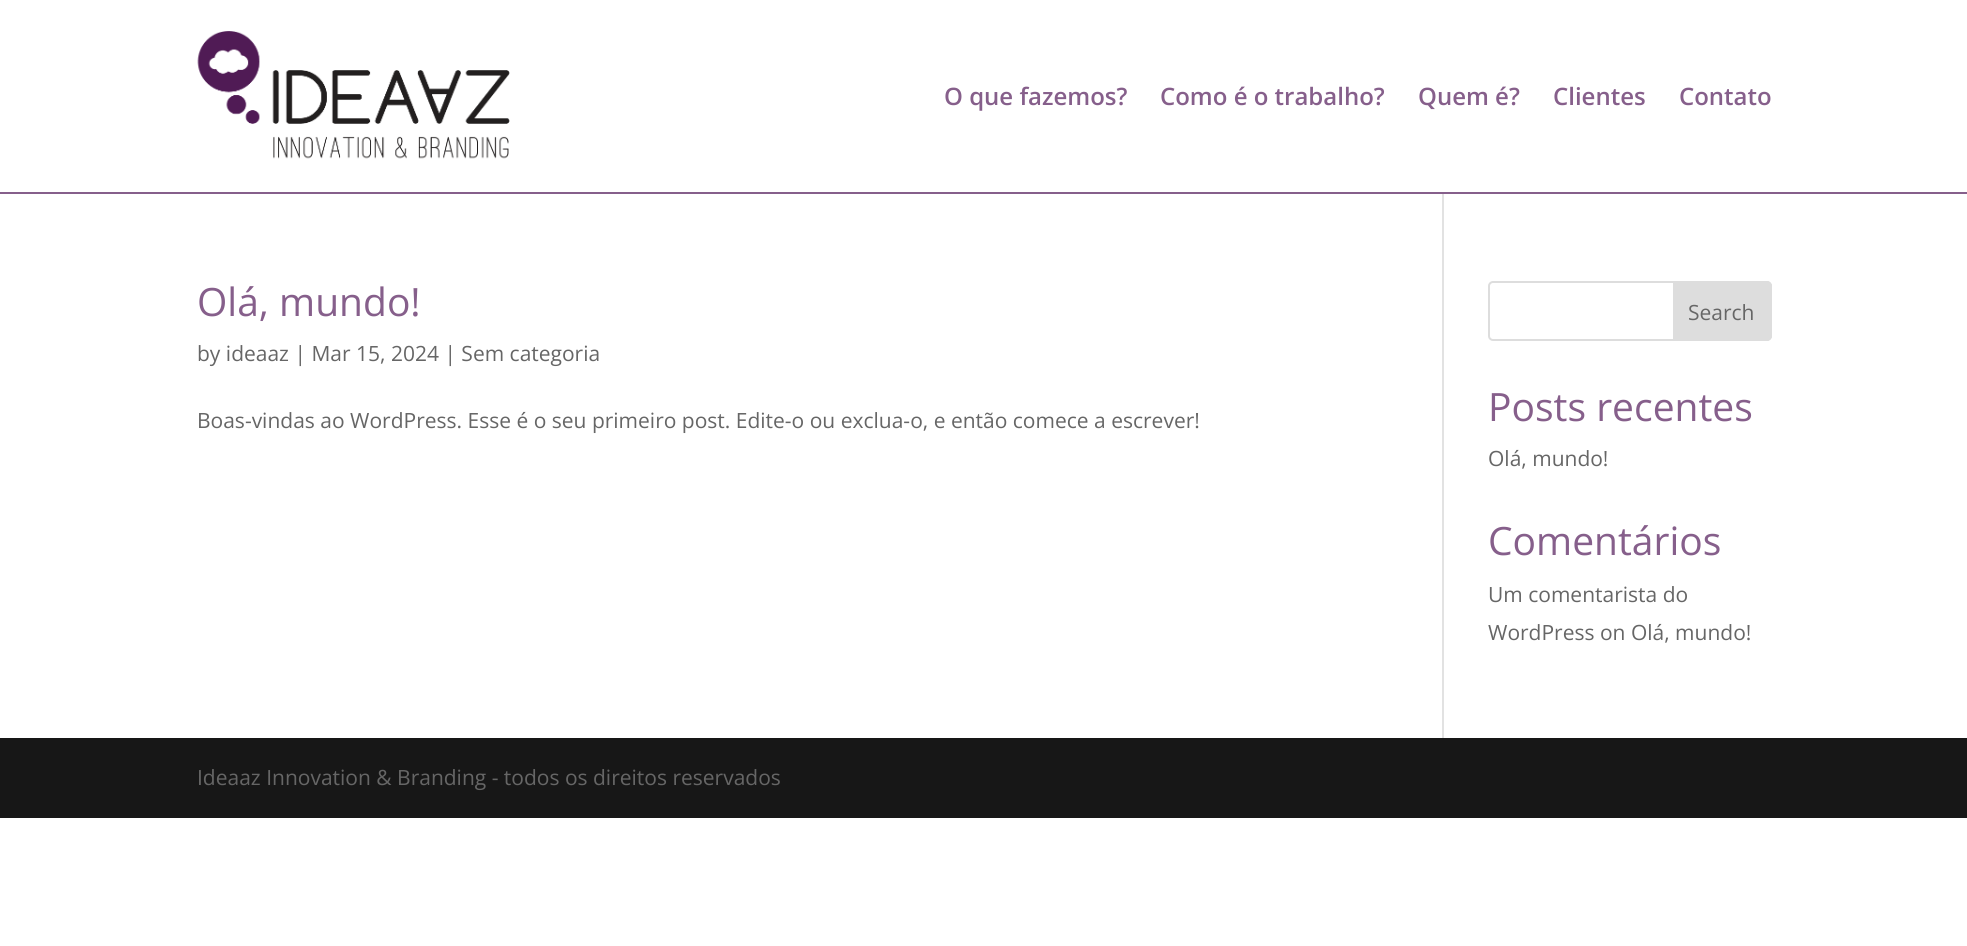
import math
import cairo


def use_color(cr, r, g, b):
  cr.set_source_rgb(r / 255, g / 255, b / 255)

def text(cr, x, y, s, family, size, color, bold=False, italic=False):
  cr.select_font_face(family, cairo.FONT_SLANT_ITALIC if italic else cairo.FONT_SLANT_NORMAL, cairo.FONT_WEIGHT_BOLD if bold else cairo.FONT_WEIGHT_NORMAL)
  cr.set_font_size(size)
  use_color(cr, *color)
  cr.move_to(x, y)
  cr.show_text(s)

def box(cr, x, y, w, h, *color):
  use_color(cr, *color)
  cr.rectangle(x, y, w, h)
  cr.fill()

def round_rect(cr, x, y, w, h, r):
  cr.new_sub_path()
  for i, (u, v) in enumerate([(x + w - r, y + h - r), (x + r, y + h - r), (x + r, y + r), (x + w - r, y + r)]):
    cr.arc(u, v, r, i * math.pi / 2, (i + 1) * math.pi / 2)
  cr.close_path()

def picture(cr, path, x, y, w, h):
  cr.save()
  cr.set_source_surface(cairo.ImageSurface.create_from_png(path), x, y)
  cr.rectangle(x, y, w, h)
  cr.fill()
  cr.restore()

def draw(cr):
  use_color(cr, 255, 255, 255)
  cr.paint()
  box(cr, 0, 192, 1967, 2, 134, 95, 139)
  picture(cr, "img_01.png", 197, 31, 313, 128)
  box(cr, 1442, 194, 2, 544, 226, 226, 226)
  round_rect(cr, 1489, 282, 282, 58, 4)
  use_color(cr, 221, 221, 221)
  cr.stroke()
  cr.new_path()
  cr.move_to(1674, 282)
  cr.line_to(1767, 282)
  cr.curve_to(1769, 282, 1771, 284, 1771, 286)
  cr.line_to(1771, 336)
  cr.curve_to(1771, 338, 1769, 340, 1767, 340)
  cr.line_to(1674, 340)
  cr.close_path()
  cr.fill_preserve()
  cr.stroke()
  box(cr, 0, 738, 1967, 80, 23, 23, 23)
  text(cr, 944, 105, "O que fazemos?", "Open Sans SemiBold", 24, (134, 95, 139))
  text(cr, 1160, 105, "Como é o trabalho?", "Open Sans SemiBold", 24, (134, 95, 139))
  text(cr, 1418, 105, "Quem é?", "Open Sans SemiBold", 24, (134, 95, 139))
  text(cr, 1553, 105, "Clientes", "Open Sans SemiBold", 24, (134, 95, 139))
  text(cr, 1679, 105, "Contato", "Open Sans SemiBold", 24, (134, 95, 139))
  text(cr, 197, 316, "Olá, mundo!", "Open Sans", 39, (134, 95, 139))
  text(cr, 197, 361, "by ideaaz | Mar 15, 2024 | Sem categoria", "Open Sans", 21, (102, 102, 102))
  text(cr, 197, 428, "Boas-vindas ao WordPress. Esse é o seu primeiro post. Edite-o ou exclua-o, e então comece a escrever!", "Open Sans", 21, (102, 102, 102))
  text(cr, 1688, 320, "Search", "Open Sans", 21, (102, 102, 102))
  text(cr, 1488, 421, "Posts recentes", "Open Sans", 39, (134, 95, 139))
  text(cr, 1488, 466, "Olá, mundo!", "Open Sans", 21, (102, 102, 102))
  text(cr, 1488, 555, "Comentários", "Open Sans", 39, (134, 95, 139))
  text(cr, 1488, 602, "Um comentarista do", "Open Sans", 21, (102, 102, 102))
  text(cr, 1488, 640, "WordPress on Olá, mundo!", "Open Sans", 21, (102, 102, 102))
  text(cr, 197, 785, "Ideaaz Innovation & Branding - todos os direitos reservados", "Open Sans", 21, (102, 102, 102))


surface = cairo.ImageSurface(cairo.FORMAT_RGB24, 1967, 946)
cr = cairo.Context(surface)
options = cairo.FontOptions()
options.set_hint_metrics(cairo.HINT_METRICS_OFF)
options.set_hint_style(cairo.HINT_STYLE_NONE)
cr.set_font_options(options)
cr.set_miter_limit(4)
draw(cr)
surface.write_to_png("out.png")
